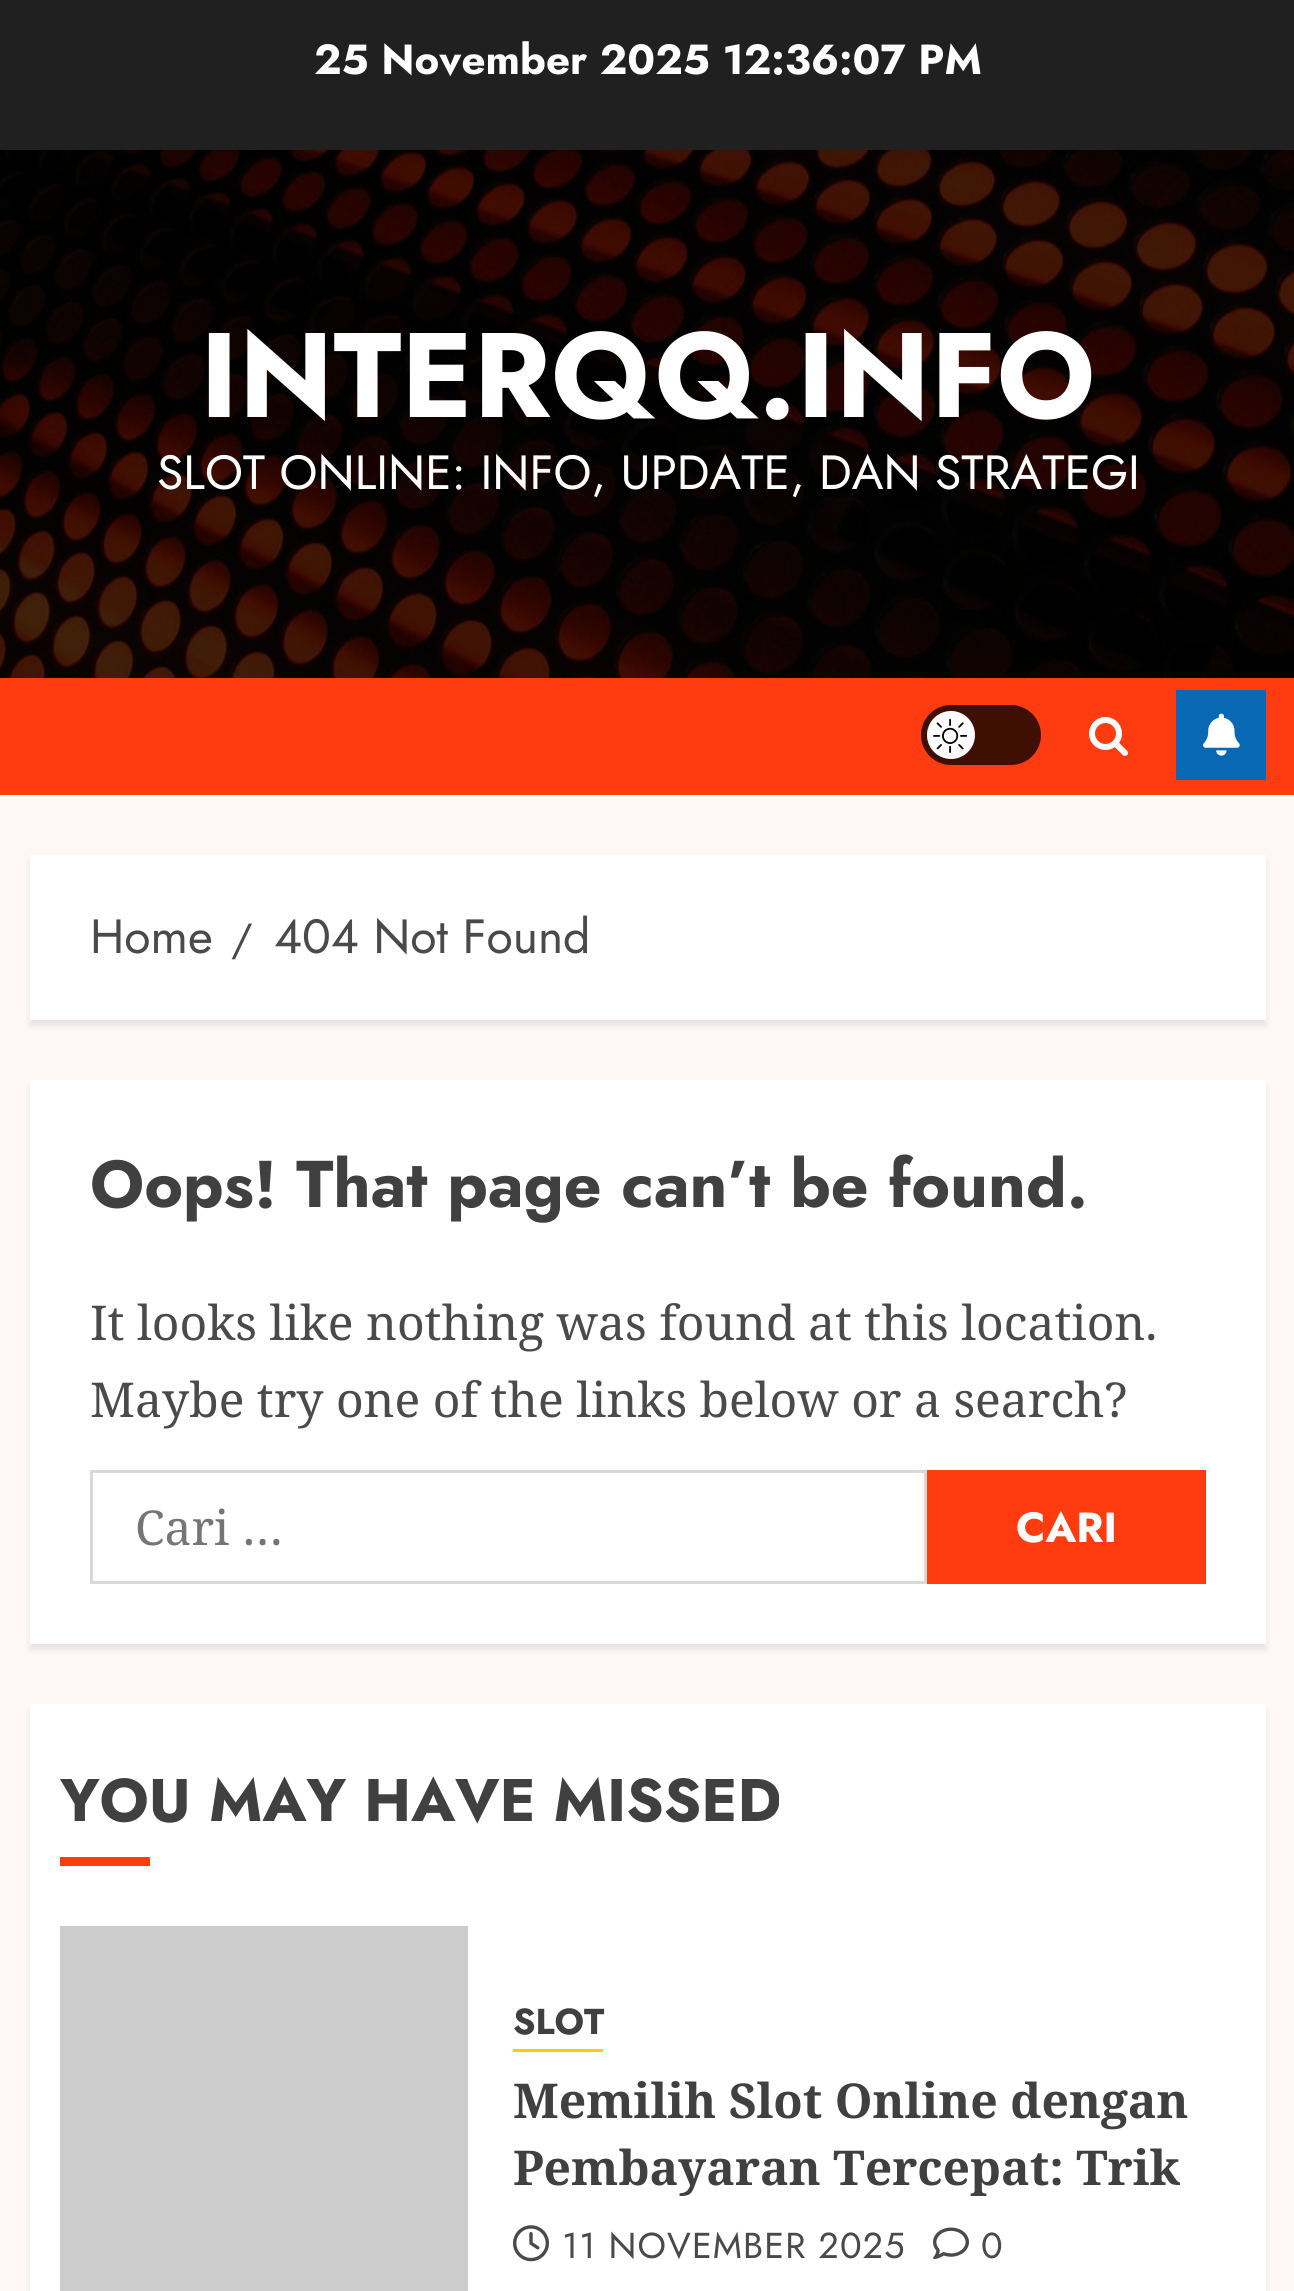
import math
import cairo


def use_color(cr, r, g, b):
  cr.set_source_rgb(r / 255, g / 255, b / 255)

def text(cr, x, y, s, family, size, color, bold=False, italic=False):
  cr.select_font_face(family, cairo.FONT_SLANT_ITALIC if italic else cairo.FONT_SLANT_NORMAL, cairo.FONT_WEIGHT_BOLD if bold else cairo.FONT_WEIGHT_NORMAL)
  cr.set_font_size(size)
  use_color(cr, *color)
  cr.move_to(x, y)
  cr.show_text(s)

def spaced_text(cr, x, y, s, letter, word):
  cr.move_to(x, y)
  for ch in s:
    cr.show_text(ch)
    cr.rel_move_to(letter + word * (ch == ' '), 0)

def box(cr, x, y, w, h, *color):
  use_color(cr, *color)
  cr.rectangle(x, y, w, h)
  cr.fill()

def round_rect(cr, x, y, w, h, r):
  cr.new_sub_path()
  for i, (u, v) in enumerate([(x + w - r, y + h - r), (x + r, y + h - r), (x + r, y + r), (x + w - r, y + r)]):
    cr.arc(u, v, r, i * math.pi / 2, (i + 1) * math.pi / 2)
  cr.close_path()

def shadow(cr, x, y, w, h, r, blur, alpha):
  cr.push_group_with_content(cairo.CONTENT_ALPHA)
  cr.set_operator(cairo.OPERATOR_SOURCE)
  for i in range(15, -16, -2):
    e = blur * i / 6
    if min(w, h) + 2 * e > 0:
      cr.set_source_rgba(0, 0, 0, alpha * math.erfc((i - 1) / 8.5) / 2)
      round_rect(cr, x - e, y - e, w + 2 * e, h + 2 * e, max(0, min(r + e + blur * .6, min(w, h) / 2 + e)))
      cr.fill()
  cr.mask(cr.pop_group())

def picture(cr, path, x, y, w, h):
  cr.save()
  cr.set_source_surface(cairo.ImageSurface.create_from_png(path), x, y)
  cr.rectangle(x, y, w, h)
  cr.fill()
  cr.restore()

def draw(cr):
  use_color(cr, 253, 247, 246)
  cr.paint()
  box(cr, 0, 0, 1294, 150, 32, 32, 32)
  picture(cr, "img_01.png", 0, 150, 1294, 528)
  box(cr, 0, 678, 1294, 117, 255, 60, 16)
  use_color(cr, 64, 15, 4)
  round_rect(cr, 921, 705, 120, 60, 30)
  cr.fill()
  use_color(cr, 255, 255, 255)
  cr.arc(951, 735, 24, 0, 2 * math.pi)
  cr.fill()
  picture(cr, "img_02.png", 933, 718, 35, 35)
  picture(cr, "img_03.png", 1089, 717, 39, 39)
  box(cr, 1176, 690, 90, 90, 8, 104, 179)
  picture(cr, "img_04.png", 1203, 713, 37, 43)
  use_color(cr, 0, 0, 0)
  shadow(cr, 30, 861, 1236, 165, 0, 3, 0.08)
  box(cr, 30, 855, 1236, 165, 255, 255, 255)
  use_color(cr, 0, 0, 0)
  shadow(cr, 30, 1086, 1236, 564, 0, 3, 0.08)
  box(cr, 30, 1080, 1236, 564, 255, 255, 255)
  cr.rectangle(91.5, 1471.5, 834, 111)
  use_color(cr, 217, 217, 217)
  cr.set_line_width(3)
  cr.stroke()
  box(cr, 927, 1470, 279, 114, 255, 60, 16)
  use_color(cr, 0, 0, 0)
  shadow(cr, 30, 1710, 1236, 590, 0, 3, 0.08)
  box(cr, 30, 1704, 1236, 587, 255, 255, 255)
  box(cr, 60, 1857, 90, 9, 255, 60, 16)
  box(cr, 60, 1926, 408, 365, 204, 204, 204)
  box(cr, 513, 2049, 90, 3, 255, 204, 0)
  picture(cr, "img_05.png", 513, 2225, 36, 37)
  picture(cr, "img_06.png", 933, 2227, 36, 32)
  text(cr, 314, 74, "25 November 2025 12:36:07 PM", "Jost", 42, (255, 255, 255), bold=True)
  text(cr, 200, 417, "INTERQQ.INFO", "Jost", 120, (255, 255, 255), bold=True)
  text(cr, 157, 489, "SLOT ONLINE: INFO, UPDATE, DAN STRATEGI", "Jost", 48, (255, 255, 255))
  text(cr, 90, 953, "Home", "Jost", 48, (74, 74, 74))
  text(cr, 231, 953, "/", "Jost", 42, (74, 74, 74))
  text(cr, 274, 953, "404 Not Found", "Jost", 48, (74, 74, 74))
  text(cr, 90, 1207, "Oops! That page can’t be found.", "Jost", 66, (64, 64, 64), bold=True)
  text(cr, 90, 1340, "It looks like nothing was found at this location.", "Noto Serif", 48, (74, 74, 74))
  text(cr, 90, 1417, "Maybe try one of the links below or a search?", "Noto Serif", 48, (74, 74, 74))
  text(cr, 135, 1545, "Cari …", "Noto Serif", 48, (117, 117, 117))
  text(cr, 1016, 1542, "CARI", "Jost", 42, (255, 255, 255), bold=True)
  text(cr, 60, 1821, "YOU MAY HAVE MISSED", "Jost", 60, (64, 64, 64), bold=True)
  text(cr, 513, 2034, "SLOT", "Jost", 36, (64, 64, 64), bold=True)
  text(cr, 513, 2118, "Memilih Slot Online dengan", "Noto Serif", 48, (64, 64, 64), bold=True)
  text(cr, 513, 2185, "Pembayaran Tercepat: Trik", "Noto Serif", 48, (64, 64, 64), bold=True)
  cr.select_font_face("Jost")
  cr.set_font_size(36)
  use_color(cr, 74, 74, 74)
  spaced_text(cr, 562, 2258, "11 NOVEMBER 2025", 1.1, 0)
  spaced_text(cr, 981, 2258, "0", 1.1, 0)


surface = cairo.ImageSurface(cairo.FORMAT_RGB24, 1294, 2291)
cr = cairo.Context(surface)
options = cairo.FontOptions()
options.set_hint_metrics(cairo.HINT_METRICS_OFF)
options.set_hint_style(cairo.HINT_STYLE_NONE)
cr.set_font_options(options)
cr.set_miter_limit(4)
draw(cr)
surface.write_to_png("out.png")
